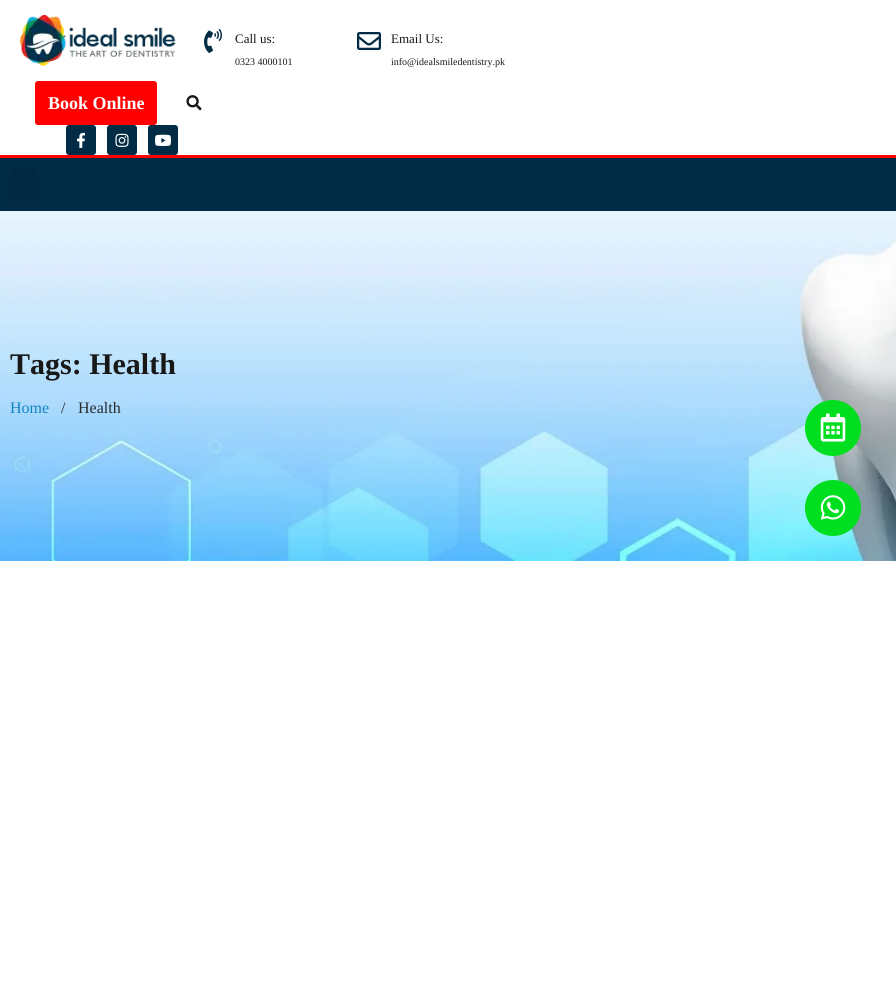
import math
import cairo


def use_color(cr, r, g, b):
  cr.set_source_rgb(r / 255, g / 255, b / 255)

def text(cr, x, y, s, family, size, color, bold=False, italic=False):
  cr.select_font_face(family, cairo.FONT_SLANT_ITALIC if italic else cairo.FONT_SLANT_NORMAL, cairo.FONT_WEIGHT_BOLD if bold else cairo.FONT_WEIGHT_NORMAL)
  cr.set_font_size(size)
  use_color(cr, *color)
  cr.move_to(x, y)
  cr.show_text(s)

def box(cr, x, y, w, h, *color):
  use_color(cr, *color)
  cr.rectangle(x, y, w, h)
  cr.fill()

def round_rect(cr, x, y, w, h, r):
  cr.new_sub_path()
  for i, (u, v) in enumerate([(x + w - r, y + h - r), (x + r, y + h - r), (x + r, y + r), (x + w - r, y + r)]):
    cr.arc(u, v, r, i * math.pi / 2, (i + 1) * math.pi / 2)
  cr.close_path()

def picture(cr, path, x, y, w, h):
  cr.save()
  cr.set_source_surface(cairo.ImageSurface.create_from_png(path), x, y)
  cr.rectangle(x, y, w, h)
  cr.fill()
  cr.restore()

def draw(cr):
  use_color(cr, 255, 255, 255)
  cr.paint()
  picture(cr, "img_01.png", 20, 15, 156, 51)
  picture(cr, "img_02.png", 204, 29, 18, 24)
  picture(cr, "img_03.png", 357, 32, 24, 18)
  use_color(cr, 255, 0, 0)
  round_rect(cr, 35, 81, 122, 44, 3)
  cr.fill()
  picture(cr, "img_04.png", 186, 95, 16, 16)
  use_color(cr, 2, 43, 69)
  round_rect(cr, 66, 125, 30, 30, 3)
  cr.fill()
  picture(cr, "img_05.png", 77, 132, 8, 16)
  round_rect(cr, 107, 125, 30, 30, 3)
  cr.fill()
  picture(cr, "img_06.png", 115, 133, 14, 14)
  round_rect(cr, 148, 125, 30, 30, 3)
  cr.fill()
  picture(cr, "img_07.png", 155, 134, 16, 12)
  picture(cr, "img_10.png", 0, 211, 896, 350)
  use_color(cr, 0, 223, 31)
  cr.arc(833, 428, 28, 0, 2 * math.pi)
  cr.fill()
  picture(cr, "img_08.png", 820, 413, 26, 29)
  cr.arc(833, 508, 28, 0, 2 * math.pi)
  cr.fill()
  picture(cr, "img_09.png", 820, 495, 26, 25)
  box(cr, 0, 158, 896, 53, 2, 43, 69)
  box(cr, 0, 155, 896, 3, 255, 0, 0)
  use_color(cr, 2, 41, 66)
  round_rect(cr, 10, 168, 28, 33, 3)
  cr.fill()
  text(cr, 235, 43, "Call us:", "Liberation Serif", 13, (24, 24, 24))
  text(cr, 235, 65, "0323 4000101", "Liberation Serif", 10, (24, 24, 24))
  text(cr, 391, 43, "Email Us:", "Liberation Serif", 13, (24, 24, 24))
  text(cr, 391, 65, "info@idealsmiledentistry.pk", "Liberation Serif", 10, (24, 24, 24))
  text(cr, 48, 109, "Book Online", "Liberation Serif", 18, (255, 255, 255), bold=True)
  text(cr, 10, 374, "Tags: Health", "Liberation Serif", 30, (24, 24, 24), bold=True)
  text(cr, 10, 413, "Home", "Liberation Serif", 16, (17, 133, 193))
  text(cr, 61, 413, "/", "Liberation Serif", 16, (39, 43, 47))
  text(cr, 78, 413, "Health", "Liberation Serif", 16, (39, 43, 47))


surface = cairo.ImageSurface(cairo.FORMAT_RGB24, 896, 989)
cr = cairo.Context(surface)
options = cairo.FontOptions()
options.set_hint_metrics(cairo.HINT_METRICS_OFF)
options.set_hint_style(cairo.HINT_STYLE_NONE)
cr.set_font_options(options)
cr.set_miter_limit(4)
draw(cr)
surface.write_to_png("out.png")
